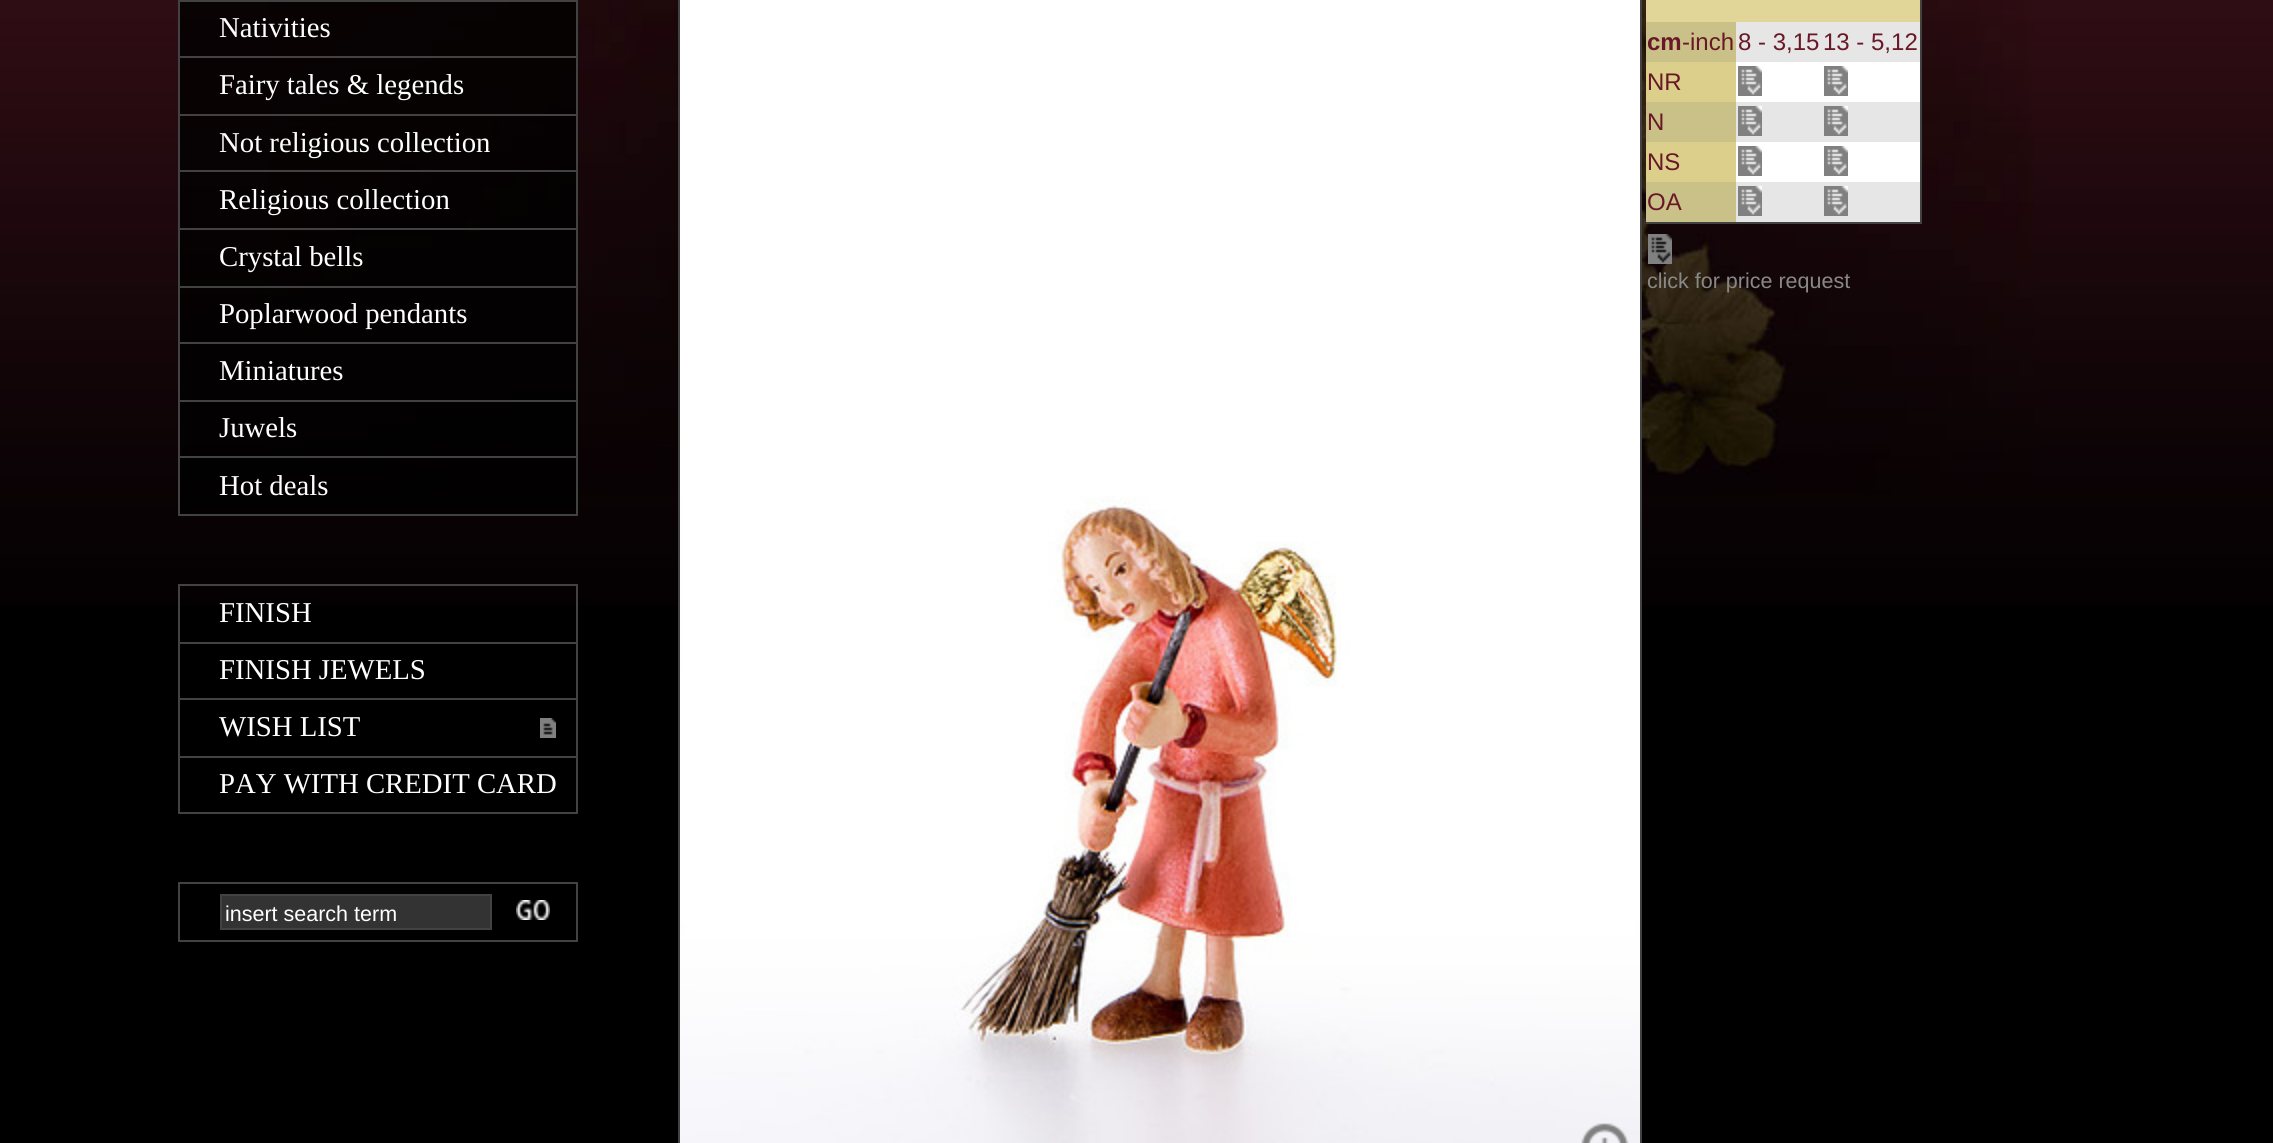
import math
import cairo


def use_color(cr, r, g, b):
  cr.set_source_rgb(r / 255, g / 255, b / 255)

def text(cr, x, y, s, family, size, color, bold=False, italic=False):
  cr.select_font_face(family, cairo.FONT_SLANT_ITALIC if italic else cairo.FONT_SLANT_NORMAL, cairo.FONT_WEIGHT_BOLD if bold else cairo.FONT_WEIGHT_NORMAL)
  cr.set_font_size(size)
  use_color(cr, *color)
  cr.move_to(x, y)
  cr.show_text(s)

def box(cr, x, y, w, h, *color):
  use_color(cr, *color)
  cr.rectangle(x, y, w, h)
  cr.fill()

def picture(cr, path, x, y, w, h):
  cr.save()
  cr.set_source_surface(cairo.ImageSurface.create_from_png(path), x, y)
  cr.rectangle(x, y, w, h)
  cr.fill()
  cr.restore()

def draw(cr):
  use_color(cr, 0, 0, 0)
  cr.paint()
  picture(cr, "img_01.png", 0, 0, 2273, 605)
  picture(cr, "img_02.png", 269, 0, 1765, 495)
  cr.set_source_rgba(0, 0, 0, 0.8)
  cr.rectangle(179, 1, 398, 56)
  cr.fill_preserve()
  use_color(cr, 66, 66, 66)
  cr.stroke()
  cr.set_source_rgba(0, 0, 0, 0.8)
  cr.rectangle(179, 57, 398, 58)
  cr.fill_preserve()
  use_color(cr, 66, 66, 66)
  cr.stroke()
  cr.set_source_rgba(0, 0, 0, 0.8)
  cr.rectangle(179, 115, 398, 56)
  cr.fill_preserve()
  use_color(cr, 66, 66, 66)
  cr.stroke()
  cr.set_source_rgba(0, 0, 0, 0.8)
  cr.rectangle(179, 171, 398, 58)
  cr.fill_preserve()
  use_color(cr, 66, 66, 66)
  cr.stroke()
  cr.set_source_rgba(0, 0, 0, 0.8)
  cr.rectangle(179, 229, 398, 58)
  cr.fill_preserve()
  use_color(cr, 66, 66, 66)
  cr.stroke()
  cr.set_source_rgba(0, 0, 0, 0.8)
  cr.rectangle(179, 287, 398, 56)
  cr.fill_preserve()
  use_color(cr, 66, 66, 66)
  cr.stroke()
  cr.set_source_rgba(0, 0, 0, 0.8)
  cr.rectangle(179, 343, 398, 58)
  cr.fill_preserve()
  use_color(cr, 66, 66, 66)
  cr.stroke()
  cr.set_source_rgba(0, 0, 0, 0.8)
  cr.rectangle(179, 401, 398, 56)
  cr.fill_preserve()
  use_color(cr, 66, 66, 66)
  cr.stroke()
  cr.set_source_rgba(0, 0, 0, 0.8)
  cr.rectangle(179, 457, 398, 58)
  cr.fill_preserve()
  use_color(cr, 66, 66, 66)
  cr.stroke()
  cr.rectangle(179, 585, 398, 58)
  cr.stroke()
  cr.rectangle(179, 643, 398, 56)
  cr.stroke()
  cr.rectangle(179, 699, 398, 58)
  cr.stroke()
  picture(cr, "img_03.png", 540, 718, 16, 20)
  cr.rectangle(179, 757, 398, 56)
  cr.stroke()
  cr.rectangle(179, 883, 398, 58)
  cr.stroke()
  use_color(cr, 51, 51, 51)
  cr.rectangle(221, 895, 270, 34)
  cr.fill_preserve()
  use_color(cr, 66, 66, 66)
  cr.stroke()
  picture(cr, "img_04.png", 516, 900, 34, 20)
  box(cr, 680, 0, 960, 496, 255, 255, 255)
  cr.rectangle(679, -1, 962, 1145)
  use_color(cr, 66, 66, 66)
  cr.stroke()
  picture(cr, "img_05.png", 680, 496, 960, 647)
  picture(cr, "img_06.png", 1581, 1123, 48, 20)
  box(cr, 1920, 0, 2, 224, 66, 66, 66)
  box(cr, 1646, 222, 276, 2, 66, 66, 66)
  box(cr, 1646, 0, 274, 22, 225, 214, 152)
  box(cr, 1736, 22, 184, 40, 230, 230, 230)
  box(cr, 1646, 22, 90, 40, 202, 193, 136)
  box(cr, 1736, 62, 184, 40, 255, 255, 255)
  box(cr, 1646, 62, 90, 40, 220, 207, 139)
  picture(cr, "img_07.png", 1738, 66, 24, 30)
  picture(cr, "img_07.png", 1824, 66, 24, 30)
  box(cr, 1736, 102, 184, 40, 230, 230, 230)
  box(cr, 1646, 102, 90, 40, 202, 193, 136)
  picture(cr, "img_07.png", 1738, 106, 24, 30)
  picture(cr, "img_07.png", 1824, 106, 24, 30)
  box(cr, 1736, 142, 184, 40, 255, 255, 255)
  box(cr, 1646, 142, 90, 40, 220, 207, 139)
  picture(cr, "img_07.png", 1738, 146, 24, 30)
  picture(cr, "img_07.png", 1824, 146, 24, 30)
  box(cr, 1736, 182, 184, 40, 230, 230, 230)
  box(cr, 1646, 182, 90, 40, 202, 193, 136)
  picture(cr, "img_07.png", 1738, 186, 24, 30)
  picture(cr, "img_07.png", 1824, 186, 24, 30)
  picture(cr, "img_08.png", 1648, 234, 24, 30)
  text(cr, 219, 37, "Nativities", "Liberation Serif", 28.75, (255, 255, 255))
  text(cr, 219, 94, "Fairy tales & legends", "Liberation Serif", 28.75, (255, 255, 255))
  text(cr, 219, 152, "Not religious collection", "Liberation Serif", 28.75, (255, 255, 255))
  text(cr, 219, 209, "Religious collection", "Liberation Serif", 28.75, (255, 255, 255))
  text(cr, 219, 266, "Crystal bells", "Liberation Serif", 28.75, (255, 255, 255))
  text(cr, 219, 323, "Poplarwood pendants", "Liberation Serif", 28.75, (255, 255, 255))
  text(cr, 219, 380, "Miniatures", "Liberation Serif", 28.75, (255, 255, 255))
  text(cr, 219, 437, "Juwels", "Liberation Serif", 28.75, (255, 255, 255))
  text(cr, 219, 495, "Hot deals", "Liberation Serif", 28.75, (255, 255, 255))
  text(cr, 219, 622, "FINISH", "Liberation Serif", 28.75, (255, 255, 255))
  text(cr, 219, 679, "FINISH JEWELS", "Liberation Serif", 28.75, (255, 255, 255))
  text(cr, 219, 736, "WISH LIST", "Liberation Serif", 28.75, (255, 255, 255))
  text(cr, 219, 793, "PAY WITH CREDIT CARD", "Liberation Serif", 28.75, (255, 255, 255))
  text(cr, 225, 921, "insert search term", "Liberation Sans", 21.5, (255, 255, 255))
  text(cr, 1647, 50, "cm", "Liberation Sans", 24, (105, 24, 39), bold=True)
  text(cr, 1682, 50, "-inch", "Liberation Sans", 24, (105, 24, 39))
  text(cr, 1738, 50, "8 - 3,15", "Liberation Sans", 24, (105, 24, 39))
  text(cr, 1823, 50, "13 - 5,12", "Liberation Sans", 24, (105, 24, 39))
  text(cr, 1647, 90, "NR", "Liberation Sans", 24, (105, 24, 39))
  text(cr, 1647, 130, "N", "Liberation Sans", 24, (105, 24, 39))
  text(cr, 1647, 170, "NS", "Liberation Sans", 24, (105, 24, 39))
  text(cr, 1647, 210, "OA", "Liberation Sans", 24, (105, 24, 39))
  text(cr, 1647, 288, "click for price request", "Liberation Sans", 21.5, (136, 136, 136))


surface = cairo.ImageSurface(cairo.FORMAT_RGB24, 2273, 1143)
cr = cairo.Context(surface)
options = cairo.FontOptions()
options.set_hint_metrics(cairo.HINT_METRICS_OFF)
options.set_hint_style(cairo.HINT_STYLE_NONE)
cr.set_font_options(options)
cr.set_miter_limit(4)
draw(cr)
surface.write_to_png("out.png")
